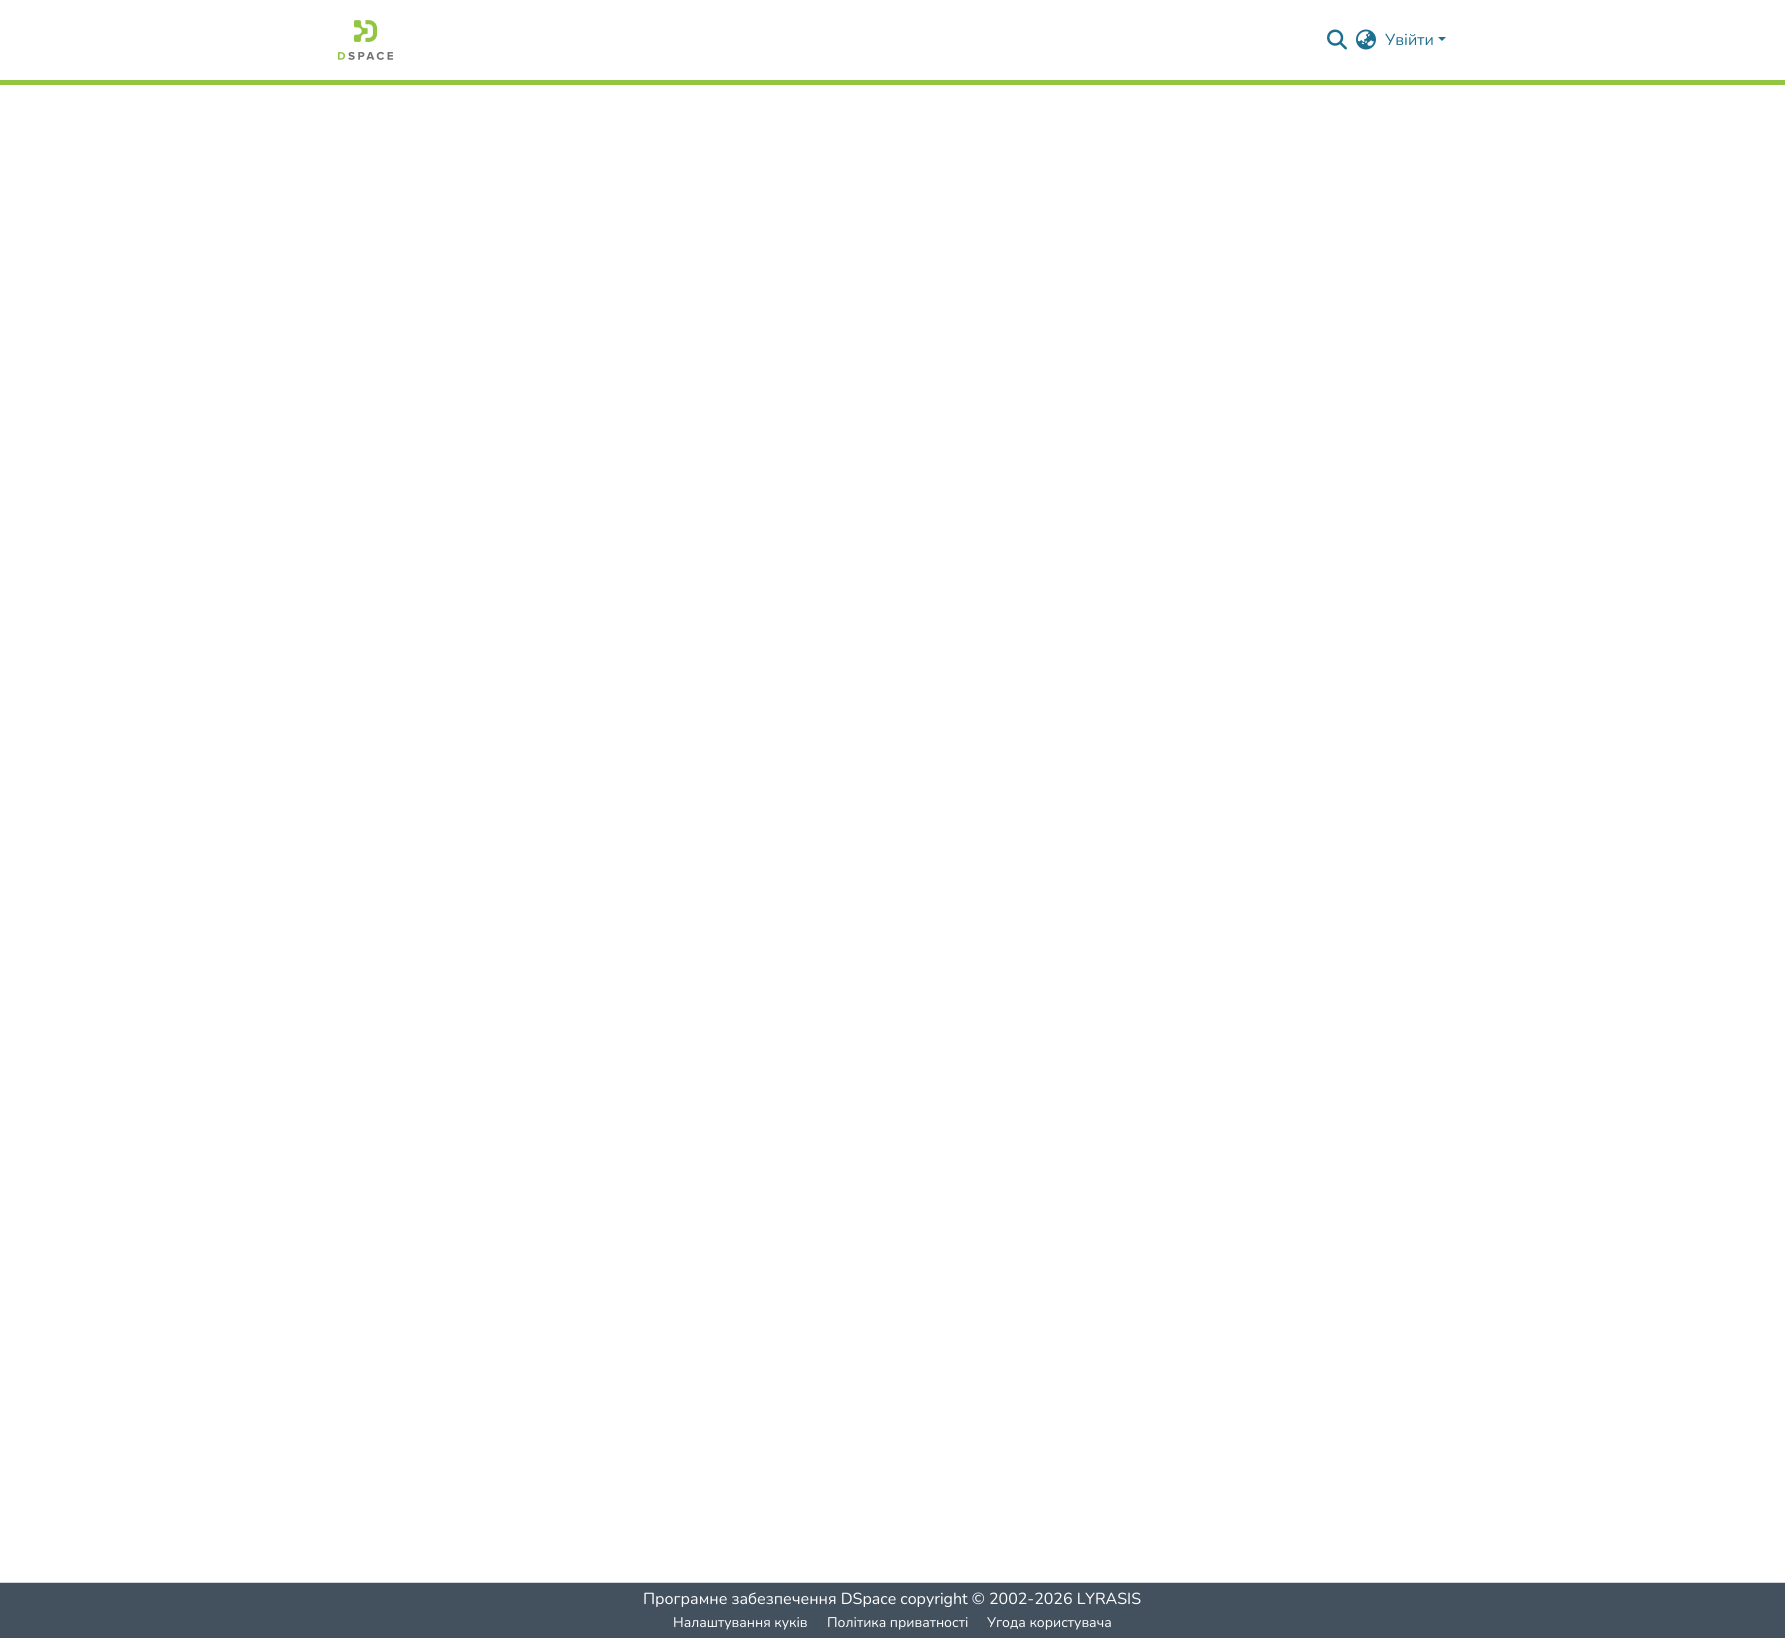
import math
import cairo


def use_color(cr, r, g, b):
  cr.set_source_rgb(r / 255, g / 255, b / 255)

def text(cr, x, y, s, family, size, color, bold=False, italic=False):
  cr.select_font_face(family, cairo.FONT_SLANT_ITALIC if italic else cairo.FONT_SLANT_NORMAL, cairo.FONT_WEIGHT_BOLD if bold else cairo.FONT_WEIGHT_NORMAL)
  cr.set_font_size(size)
  use_color(cr, *color)
  cr.move_to(x, y)
  cr.show_text(s)

def box(cr, x, y, w, h, *color):
  use_color(cr, *color)
  cr.rectangle(x, y, w, h)
  cr.fill()

def picture(cr, path, x, y, w, h):
  cr.save()
  cr.set_source_surface(cairo.ImageSurface.create_from_png(path), x, y)
  cr.rectangle(x, y, w, h)
  cr.fill()
  cr.restore()

def draw(cr):
  use_color(cr, 255, 255, 255)
  cr.paint()
  box(cr, 0, 80, 1785, 5, 146, 198, 66)
  picture(cr, "img_01.png", 338, 20, 55, 40)
  picture(cr, "img_02.png", 1327, 29, 20, 21)
  picture(cr, "img_03.png", 1356, 29, 20, 21)
  use_color(cr, 30, 111, 144)
  cr.new_path()
  cr.move_to(1438, 37)
  cr.line_to(1446, 37)
  cr.line_to(1442, 41)
  cr.close_path()
  cr.fill()
  box(cr, 0, 1583, 1785, 55, 67, 81, 95)
  box(cr, 0, 1582, 1785, 1, 206, 212, 218)
  box(cr, 817, 1611, 1, 23, 73, 80, 87)
  box(cr, 977, 1611, 1, 23, 73, 80, 87)
  text(cr, 1385, 45, "Увійти", "Nunito", 16, (30, 111, 144))
  text(cr, 643, 1604, "Програмне забезпечення DSpace copyright © 2002-2026 LYRASIS", "Nunito", 16, (255, 255, 255))
  text(cr, 673, 1627, "Налаштування куків", "Nunito", 14, (255, 255, 255))
  text(cr, 827, 1627, "Політика приватності", "Nunito", 14, (255, 255, 255))
  text(cr, 987, 1627, "Угода користувача", "Nunito", 14, (255, 255, 255))


surface = cairo.ImageSurface(cairo.FORMAT_RGB24, 1785, 1638)
cr = cairo.Context(surface)
options = cairo.FontOptions()
options.set_hint_metrics(cairo.HINT_METRICS_OFF)
options.set_hint_style(cairo.HINT_STYLE_NONE)
cr.set_font_options(options)
cr.set_miter_limit(4)
draw(cr)
surface.write_to_png("out.png")
